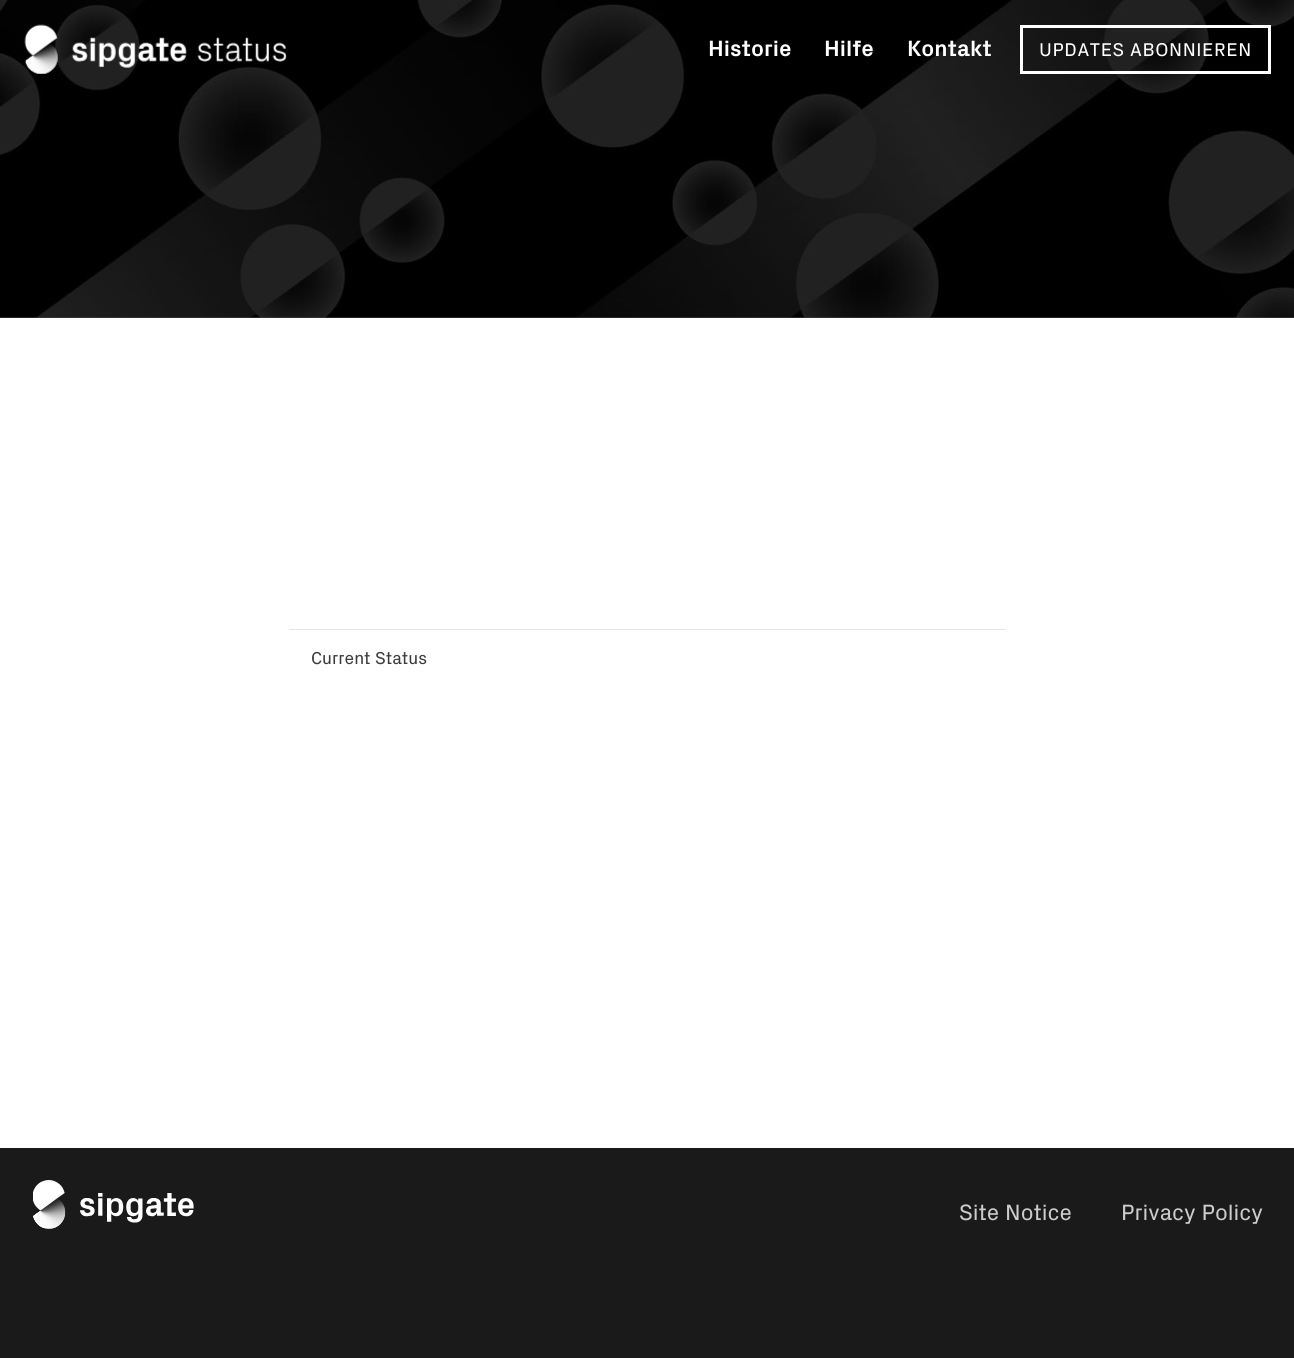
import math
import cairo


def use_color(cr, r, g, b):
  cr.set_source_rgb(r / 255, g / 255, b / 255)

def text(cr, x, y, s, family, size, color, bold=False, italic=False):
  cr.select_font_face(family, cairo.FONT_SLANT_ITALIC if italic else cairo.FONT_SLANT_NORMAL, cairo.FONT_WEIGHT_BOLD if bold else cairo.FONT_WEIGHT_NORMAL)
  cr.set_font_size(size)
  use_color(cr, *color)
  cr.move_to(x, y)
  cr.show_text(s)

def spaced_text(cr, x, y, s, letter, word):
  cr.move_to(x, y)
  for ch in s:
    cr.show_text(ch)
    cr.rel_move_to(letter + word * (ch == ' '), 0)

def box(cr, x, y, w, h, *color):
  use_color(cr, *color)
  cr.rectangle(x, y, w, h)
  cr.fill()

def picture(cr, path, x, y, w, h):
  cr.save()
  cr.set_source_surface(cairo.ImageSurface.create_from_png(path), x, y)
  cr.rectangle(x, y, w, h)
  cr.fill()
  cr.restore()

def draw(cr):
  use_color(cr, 255, 255, 255)
  cr.paint()
  box(cr, 0, 317, 1294, 1, 77, 77, 77)
  picture(cr, "img_01.png", 0, 0, 1294, 318)
  picture(cr, "img_02.png", 24, 24, 263, 50)
  cr.rectangle(1021.5, 26.5, 248, 46)
  use_color(cr, 255, 255, 255)
  cr.set_line_width(3)
  cr.stroke()
  box(cr, 289, 629, 717, 1, 230, 230, 230)
  box(cr, 0, 1148, 1294, 210, 26, 26, 26)
  picture(cr, "img_03.png", 33, 1180, 161, 49)
  text(cr, 708, 56, "Historie", "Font", 22.5, (255, 255, 255), bold=True)
  text(cr, 824, 56, "Hilfe", "Font", 22.5, (255, 255, 255), bold=True)
  text(cr, 907, 56, "Kontakt", "Font", 22.5, (255, 255, 255), bold=True)
  cr.select_font_face("Font")
  cr.set_font_size(18.75)
  spaced_text(cr, 1039, 56, "UPDATES ABONNIEREN", 0.6, 0)
  text(cr, 311, 664, "Current Status", "Font", 17.5, (60, 60, 60))
  text(cr, 959, 1220, "Site Notice", "Font", 22.5, (204, 204, 204))
  text(cr, 1121, 1220, "Privacy Policy", "Font", 22.5, (204, 204, 204))


surface = cairo.ImageSurface(cairo.FORMAT_RGB24, 1294, 1358)
cr = cairo.Context(surface)
options = cairo.FontOptions()
options.set_hint_metrics(cairo.HINT_METRICS_OFF)
options.set_hint_style(cairo.HINT_STYLE_NONE)
cr.set_font_options(options)
cr.set_miter_limit(4)
draw(cr)
surface.write_to_png("out.png")
